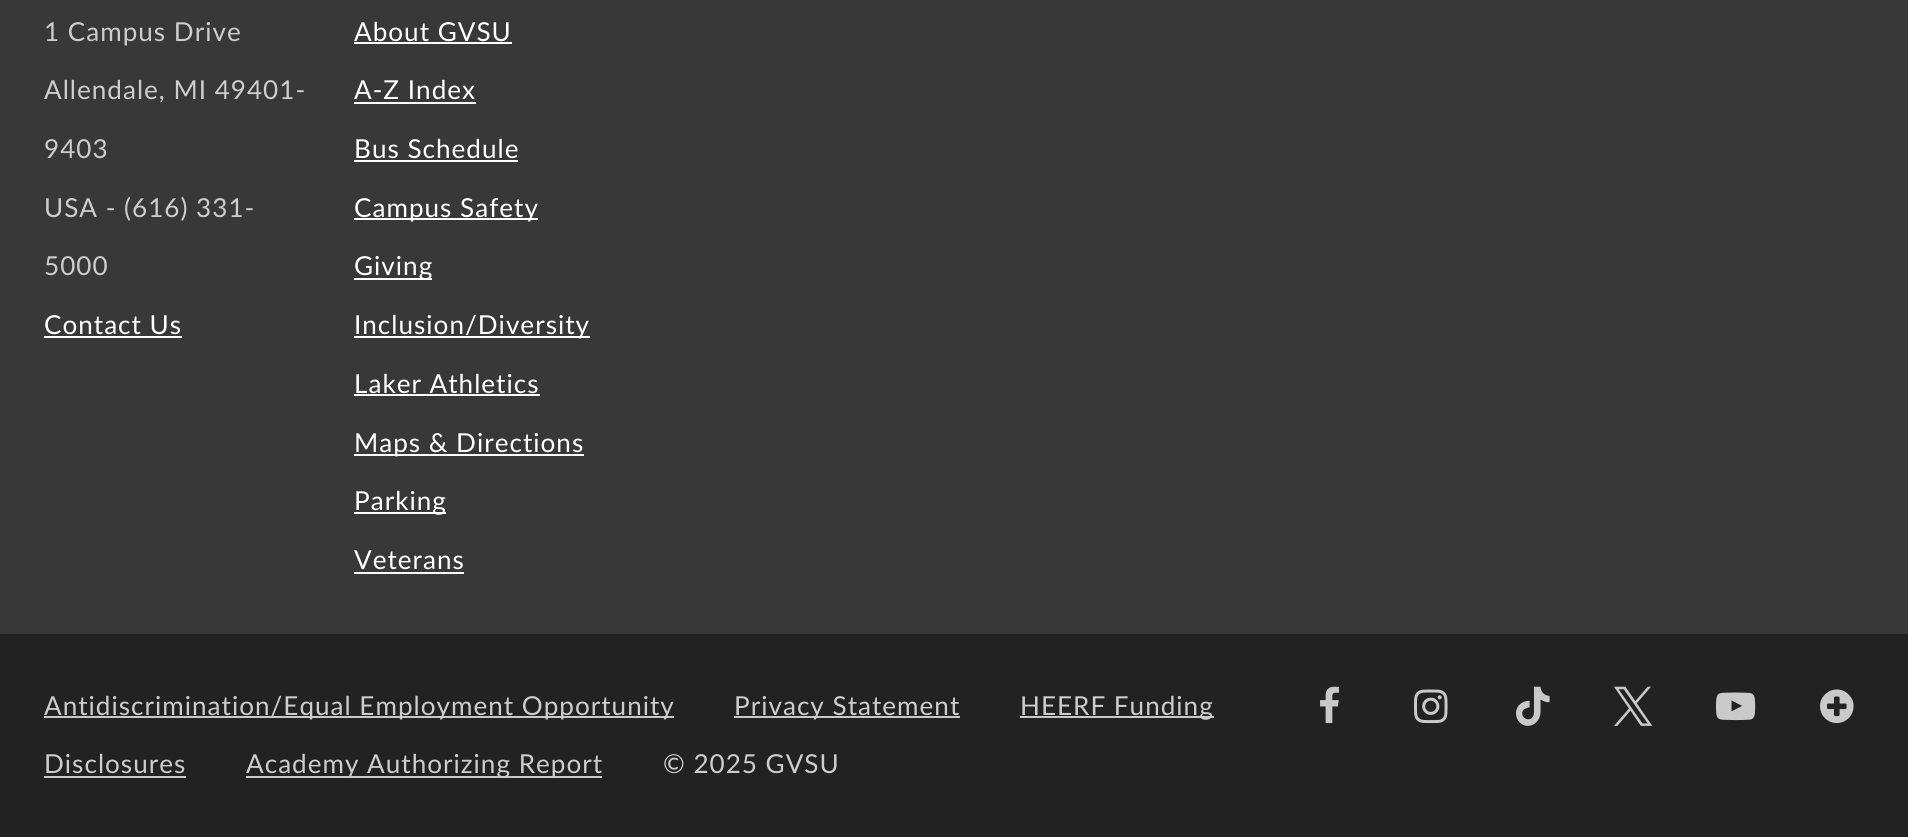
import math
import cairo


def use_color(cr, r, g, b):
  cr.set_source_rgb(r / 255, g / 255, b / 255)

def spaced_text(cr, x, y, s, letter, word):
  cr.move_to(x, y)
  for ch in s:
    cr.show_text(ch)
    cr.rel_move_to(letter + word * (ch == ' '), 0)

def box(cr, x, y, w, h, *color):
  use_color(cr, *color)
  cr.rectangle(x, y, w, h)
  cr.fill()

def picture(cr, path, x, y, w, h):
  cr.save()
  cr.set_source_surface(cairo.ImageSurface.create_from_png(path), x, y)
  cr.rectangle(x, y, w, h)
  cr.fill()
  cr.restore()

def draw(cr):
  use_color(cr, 56, 56, 56)
  cr.paint()
  box(cr, 44, 336, 138, 2, 255, 255, 255)
  box(cr, 354, 42, 158, 2, 255, 255, 255)
  box(cr, 354, 102, 122, 2, 255, 255, 255)
  box(cr, 354, 160, 164, 2, 255, 255, 255)
  box(cr, 354, 218, 184, 2, 255, 255, 255)
  box(cr, 354, 278, 78, 2, 255, 255, 255)
  box(cr, 354, 336, 236, 2, 255, 255, 255)
  box(cr, 354, 394, 186, 2, 255, 255, 255)
  box(cr, 354, 454, 230, 2, 255, 255, 255)
  box(cr, 354, 512, 92, 2, 255, 255, 255)
  box(cr, 354, 572, 110, 2, 255, 255, 255)
  box(cr, 0, 634, 1908, 203, 34, 34, 34)
  box(cr, 44, 716, 630, 2, 201, 201, 201)
  box(cr, 734, 716, 226, 2, 201, 201, 201)
  box(cr, 1020, 716, 194, 2, 201, 201, 201)
  box(cr, 44, 776, 142, 2, 201, 201, 201)
  box(cr, 246, 776, 356, 2, 201, 201, 201)
  picture(cr, "img_01.png", 1320, 686, 19, 38)
  picture(cr, "img_02.png", 1414, 689, 34, 35)
  picture(cr, "img_03.png", 1516, 686, 34, 40)
  picture(cr, "img_04.png", 1614, 686, 39, 40)
  picture(cr, "img_05.png", 1716, 692, 40, 29)
  picture(cr, "img_06.png", 1820, 689, 34, 35)
  cr.select_font_face("Lato")
  cr.set_font_size(26.1)
  use_color(cr, 206, 205, 205)
  spaced_text(cr, 44, 41, "1 Campus Drive", 1, 0)
  spaced_text(cr, 44, 99, "Allendale, MI 49401-", 1, 0)
  spaced_text(cr, 44, 158, "9403", 1, 0)
  spaced_text(cr, 44, 217, "USA - (616) 331-", 1, 0)
  spaced_text(cr, 44, 275, "5000", 1, 0)
  use_color(cr, 255, 255, 255)
  spaced_text(cr, 44, 334, "Contact Us", 1, 0)
  spaced_text(cr, 354, 41, "About GVSU", 1, 0)
  spaced_text(cr, 354, 99, "A-Z Index", 1, 0)
  spaced_text(cr, 354, 158, "Bus Schedule", 1, 0)
  spaced_text(cr, 354, 217, "Campus Safety", 1, 0)
  spaced_text(cr, 354, 275, "Giving", 1, 0)
  spaced_text(cr, 354, 334, "Inclusion/Diversity", 1, 0)
  spaced_text(cr, 354, 393, "Laker Athletics", 1, 0)
  spaced_text(cr, 354, 452, "Maps & Directions", 1, 0)
  spaced_text(cr, 354, 510, "Parking", 1, 0)
  spaced_text(cr, 354, 569, "Veterans", 1, 0)
  use_color(cr, 206, 205, 205)
  spaced_text(cr, 44, 715, "Antidiscrimination/Equal Employment Opportunity", 1, 0)
  spaced_text(cr, 734, 715, "Privacy Statement", 1, 0)
  spaced_text(cr, 1020, 715, "HEERF Funding", 1, 0)
  spaced_text(cr, 44, 773, "Disclosures", 1, 0)
  spaced_text(cr, 246, 773, "Academy Authorizing Report", 1, 0)
  spaced_text(cr, 663, 773, "© 2025 GVSU", 1, 0)


surface = cairo.ImageSurface(cairo.FORMAT_RGB24, 1908, 837)
cr = cairo.Context(surface)
options = cairo.FontOptions()
options.set_hint_metrics(cairo.HINT_METRICS_OFF)
options.set_hint_style(cairo.HINT_STYLE_NONE)
cr.set_font_options(options)
cr.set_miter_limit(4)
draw(cr)
surface.write_to_png("out.png")
